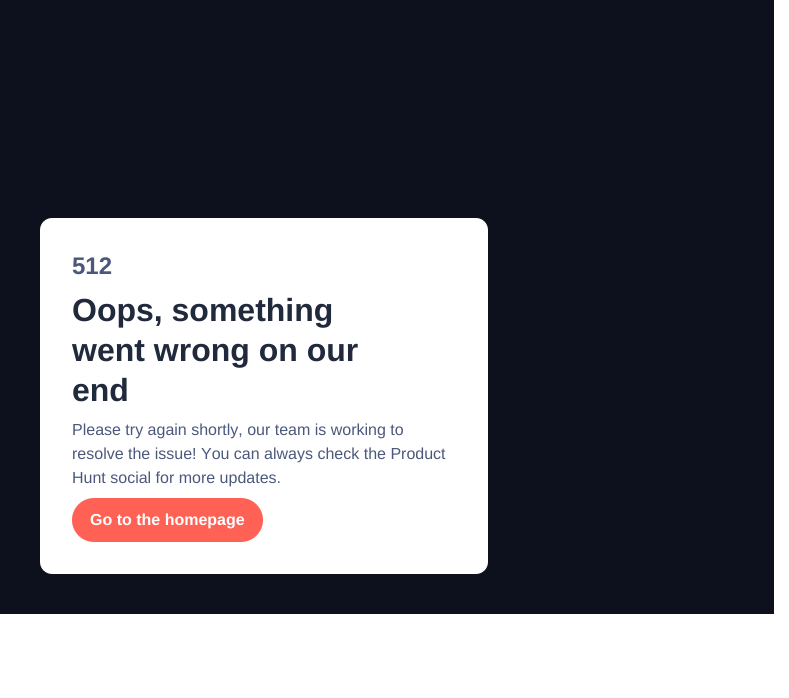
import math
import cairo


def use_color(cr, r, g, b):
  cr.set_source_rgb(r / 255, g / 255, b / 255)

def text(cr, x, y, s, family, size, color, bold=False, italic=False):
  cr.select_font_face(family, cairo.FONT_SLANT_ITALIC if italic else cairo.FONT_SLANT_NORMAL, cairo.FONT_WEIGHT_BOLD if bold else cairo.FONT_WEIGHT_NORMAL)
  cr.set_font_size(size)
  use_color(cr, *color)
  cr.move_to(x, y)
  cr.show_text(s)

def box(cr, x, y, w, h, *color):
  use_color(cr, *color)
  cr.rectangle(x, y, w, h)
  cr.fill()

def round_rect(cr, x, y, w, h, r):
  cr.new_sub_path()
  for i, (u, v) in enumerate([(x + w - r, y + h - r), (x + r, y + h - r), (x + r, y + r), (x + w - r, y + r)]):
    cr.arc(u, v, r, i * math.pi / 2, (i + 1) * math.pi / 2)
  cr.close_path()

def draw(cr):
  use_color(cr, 255, 255, 255)
  cr.paint()
  box(cr, 0, 0, 774, 614, 12, 17, 29)
  use_color(cr, 255, 255, 255)
  round_rect(cr, 40, 218, 448, 356, 12)
  cr.fill()
  use_color(cr, 255, 97, 84)
  round_rect(cr, 73, 499, 189, 42, 21)
  cr.fill_preserve()
  cr.stroke()
  text(cr, 72, 274, "512", "Liberation Sans", 24, (75, 88, 124), bold=True)
  text(cr, 72, 321, "Oops, something", "Liberation Sans", 32, (33, 41, 60), bold=True)
  text(cr, 72, 361, "went wrong on our", "Liberation Sans", 32, (33, 41, 60), bold=True)
  text(cr, 72, 401, "end", "Liberation Sans", 32, (33, 41, 60), bold=True)
  text(cr, 72, 435, "Please try again shortly, our team is working to", "Liberation Sans", 16, (75, 88, 124))
  text(cr, 72, 459, "resolve the issue! You can always check the Product", "Liberation Sans", 16, (75, 88, 124))
  text(cr, 72, 483, "Hunt social for more updates.", "Liberation Sans", 16, (75, 88, 124))
  text(cr, 90, 525, "Go to the homepage", "Liberation Sans", 16, (255, 255, 255), bold=True)


surface = cairo.ImageSurface(cairo.FORMAT_RGB24, 789, 698)
cr = cairo.Context(surface)
options = cairo.FontOptions()
options.set_hint_metrics(cairo.HINT_METRICS_OFF)
options.set_hint_style(cairo.HINT_STYLE_NONE)
cr.set_font_options(options)
cr.set_miter_limit(4)
draw(cr)
surface.write_to_png("out.png")
